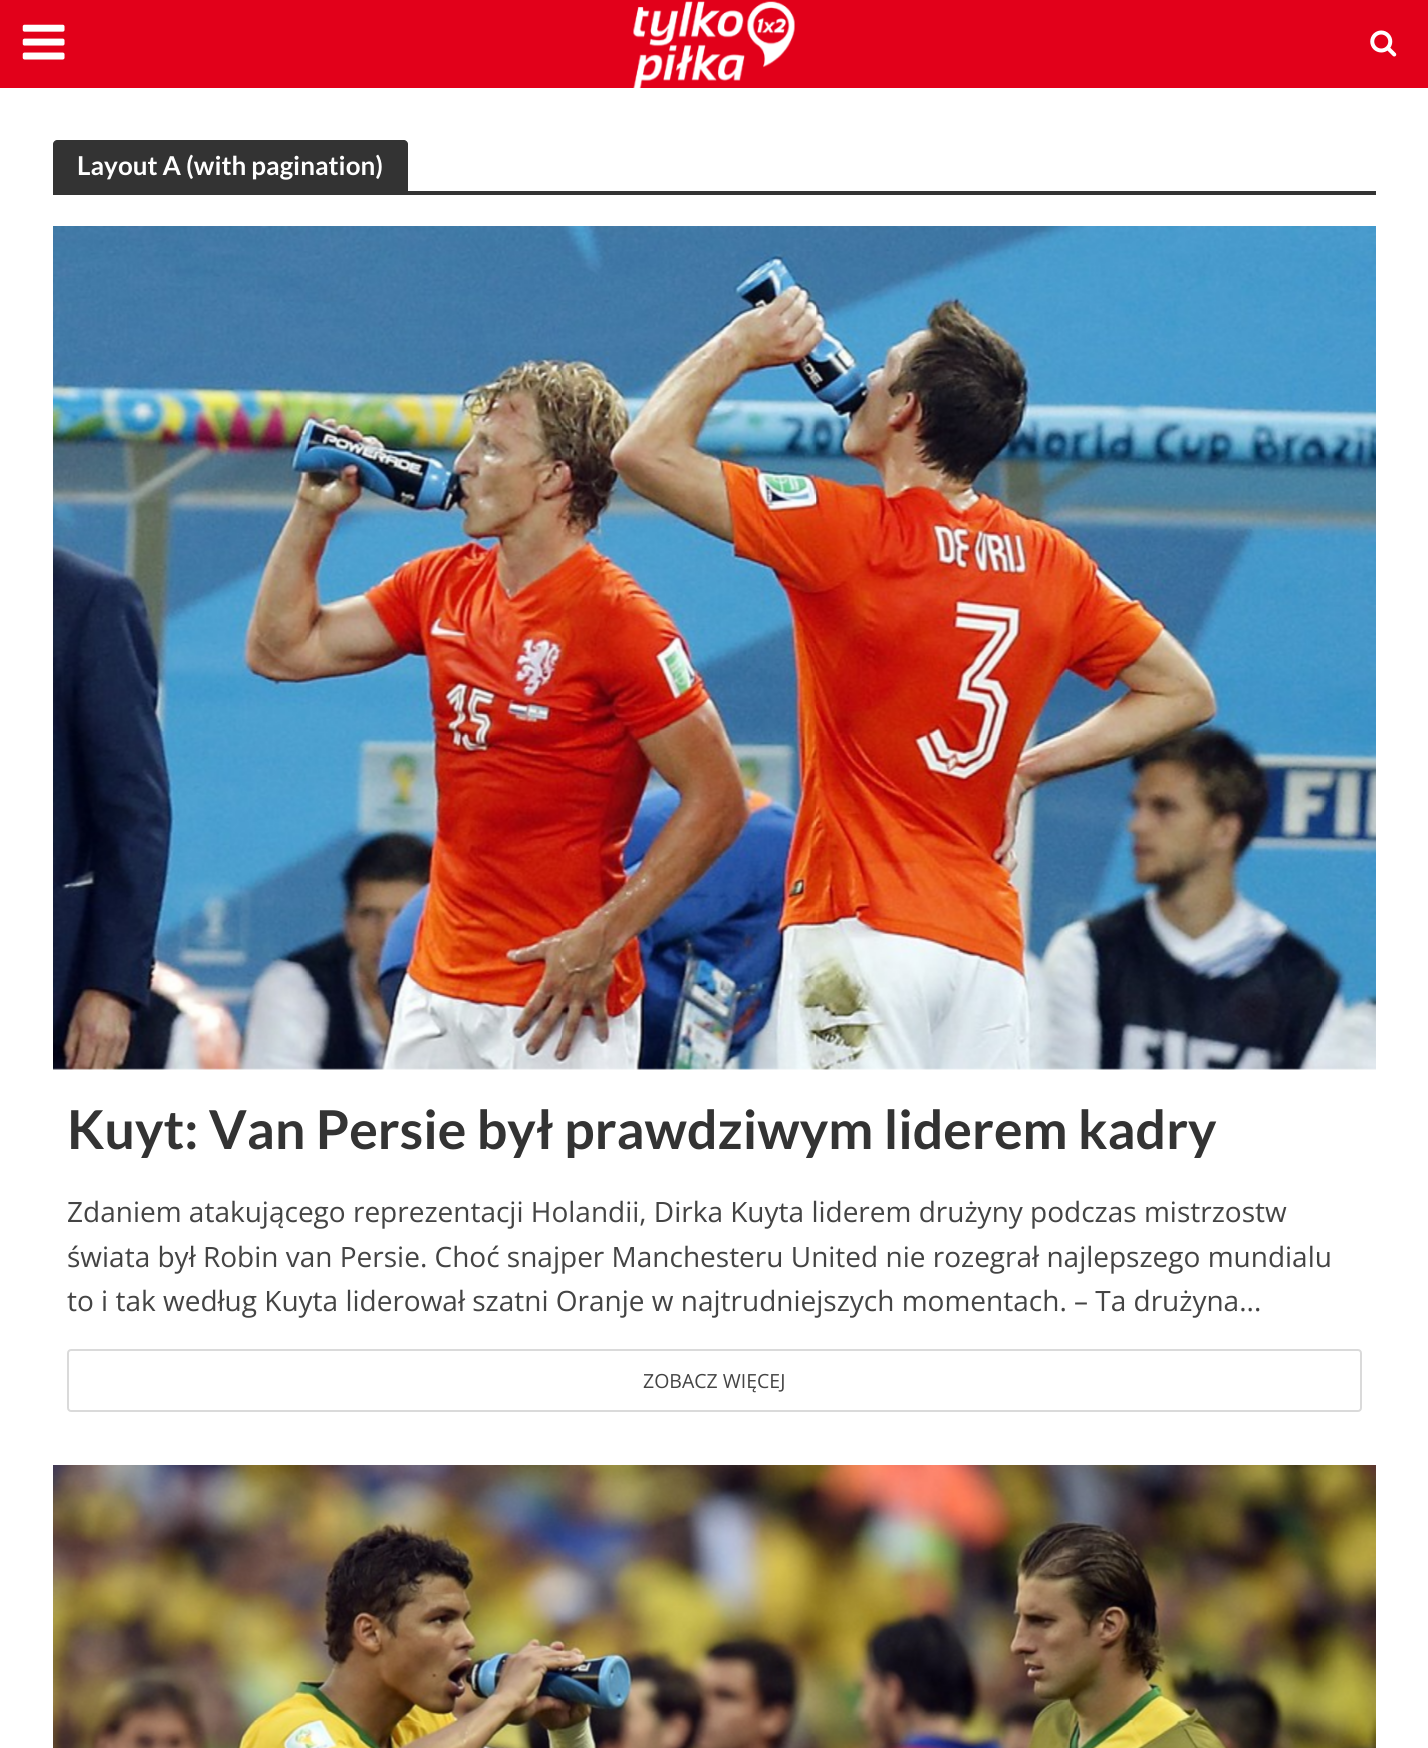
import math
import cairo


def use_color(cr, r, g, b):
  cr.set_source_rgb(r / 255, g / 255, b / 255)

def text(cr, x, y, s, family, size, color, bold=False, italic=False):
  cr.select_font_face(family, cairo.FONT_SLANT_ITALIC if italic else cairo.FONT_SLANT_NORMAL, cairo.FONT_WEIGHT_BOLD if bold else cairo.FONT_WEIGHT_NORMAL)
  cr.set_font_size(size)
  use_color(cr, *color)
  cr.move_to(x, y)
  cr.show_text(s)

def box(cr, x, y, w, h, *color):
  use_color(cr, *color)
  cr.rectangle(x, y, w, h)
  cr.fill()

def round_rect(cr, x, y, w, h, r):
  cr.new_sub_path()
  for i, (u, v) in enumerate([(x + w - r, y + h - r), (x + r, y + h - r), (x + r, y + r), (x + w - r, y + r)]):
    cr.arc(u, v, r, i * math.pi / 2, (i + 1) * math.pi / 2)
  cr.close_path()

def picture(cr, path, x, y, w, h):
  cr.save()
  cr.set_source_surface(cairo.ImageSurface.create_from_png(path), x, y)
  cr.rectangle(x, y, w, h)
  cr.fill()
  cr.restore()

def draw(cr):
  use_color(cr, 255, 255, 255)
  cr.paint()
  box(cr, 0, 0, 1428, 88, 226, 0, 26)
  picture(cr, "img_01.png", 22, 24, 43, 36)
  picture(cr, "img_02.png", 633, 1, 162, 87)
  picture(cr, "img_03.png", 1370, 30, 27, 27)
  use_color(cr, 51, 51, 51)
  cr.new_path()
  cr.move_to(57, 140)
  cr.line_to(404, 140)
  cr.curve_to(406, 140, 408, 142, 408, 144)
  cr.line_to(408, 191)
  cr.line_to(53, 191)
  cr.line_to(53, 144)
  cr.curve_to(53, 142, 55, 140, 57, 140)
  cr.close_path()
  cr.fill()
  box(cr, 53, 191, 1323, 4, 51, 51, 51)
  picture(cr, "img_04.png", 53, 226, 1323, 844)
  round_rect(cr, 68, 1350, 1293, 61, 3)
  use_color(cr, 218, 218, 218)
  cr.stroke()
  picture(cr, "img_05.png", 53, 1465, 1323, 283)
  text(cr, 77, 175, "Layout A (with pagination)", "Lato", 26, (255, 255, 255), bold=True)
  text(cr, 67, 1149, "Kuyt: Van Persie był prawdziwym liderem kadry", "Lato", 53.6, (51, 51, 51), bold=True)
  text(cr, 67, 1222, "Zdaniem atakującego reprezentacji Holandii, Dirka Kuyta liderem drużyny podczas mistrzostw", "Open Sans", 28, (68, 68, 68))
  text(cr, 67, 1267, "świata był Robin van Persie. Choć snajper Manchesteru United nie rozegrał najlepszego mundialu", "Open Sans", 28, (68, 68, 68))
  text(cr, 67, 1311, "to i tak według Kuyta liderował szatni Oranje w najtrudniejszych momentach. – Ta drużyna...", "Open Sans", 28, (68, 68, 68))
  text(cr, 643, 1388, "ZOBACZ WIĘCEJ", "Open Sans", 19.5, (68, 68, 68))


surface = cairo.ImageSurface(cairo.FORMAT_RGB24, 1428, 1748)
cr = cairo.Context(surface)
options = cairo.FontOptions()
options.set_hint_metrics(cairo.HINT_METRICS_OFF)
options.set_hint_style(cairo.HINT_STYLE_NONE)
cr.set_font_options(options)
cr.set_miter_limit(4)
draw(cr)
surface.write_to_png("out.png")
